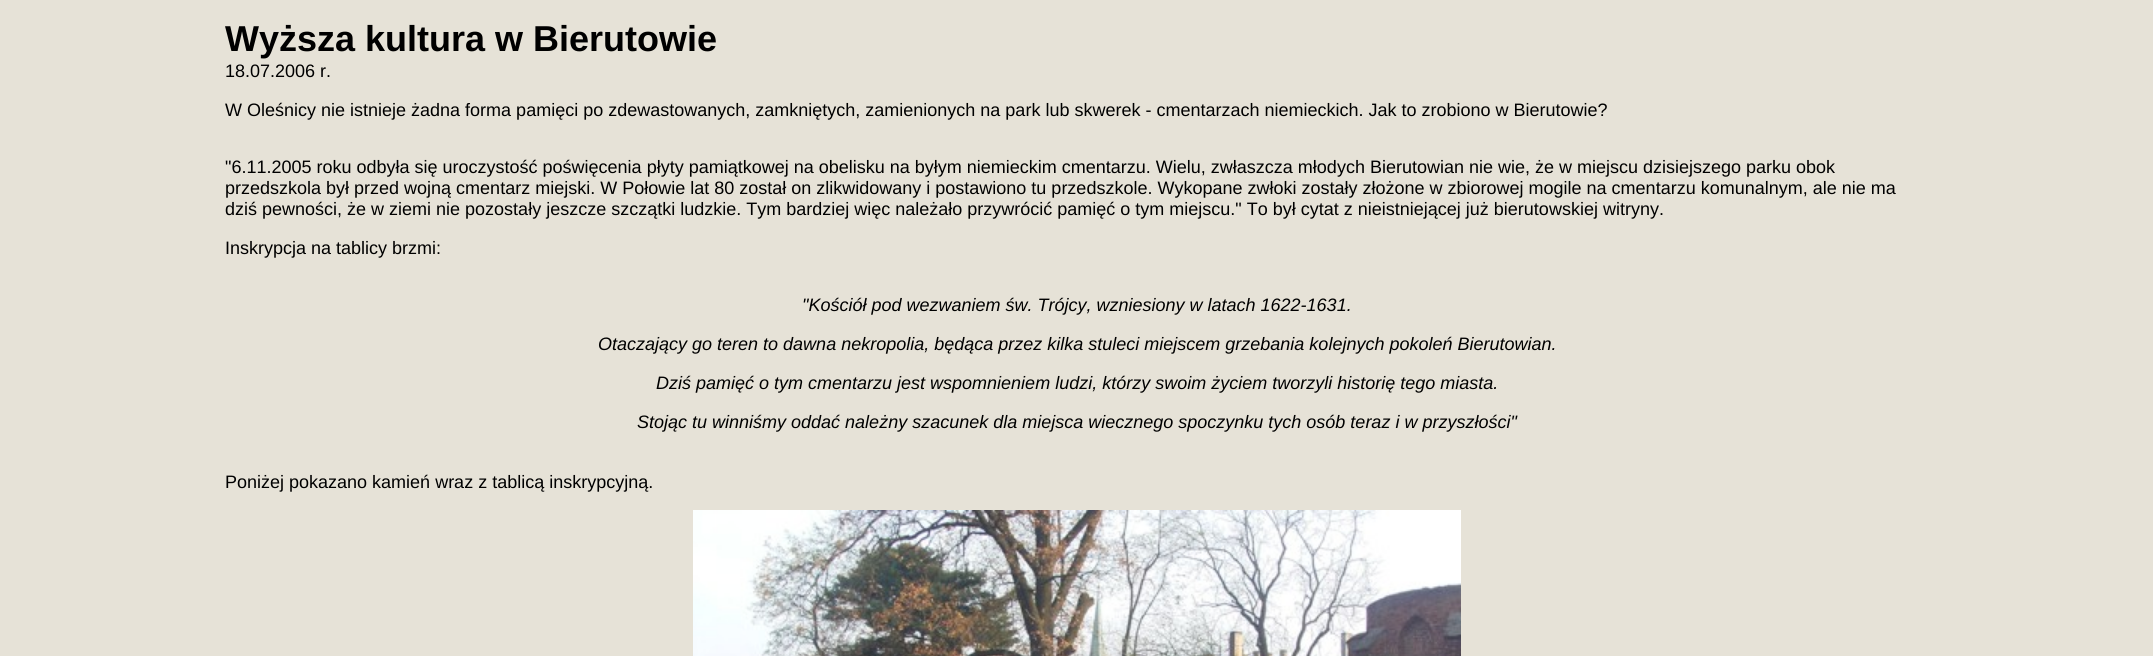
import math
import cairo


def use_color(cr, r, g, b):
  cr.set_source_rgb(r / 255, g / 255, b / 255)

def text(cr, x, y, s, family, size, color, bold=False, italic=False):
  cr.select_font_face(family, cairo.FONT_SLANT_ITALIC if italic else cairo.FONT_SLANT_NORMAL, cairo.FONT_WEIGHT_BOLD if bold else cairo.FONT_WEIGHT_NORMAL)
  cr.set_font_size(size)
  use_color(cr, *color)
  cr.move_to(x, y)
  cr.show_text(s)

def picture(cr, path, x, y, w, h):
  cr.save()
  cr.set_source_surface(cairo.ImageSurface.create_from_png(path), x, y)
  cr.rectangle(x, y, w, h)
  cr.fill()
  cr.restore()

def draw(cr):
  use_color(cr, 230, 226, 215)
  cr.paint()
  picture(cr, "img_01.png", 693, 510, 768, 146)
  text(cr, 225, 51, "Wyższa kultura w Bierutowie", "Liberation Sans", 36, (0, 0, 0), bold=True)
  text(cr, 225, 77, "18.07.2006 r.", "Liberation Sans", 18, (0, 0, 0))
  text(cr, 225, 116, "W Oleśnicy nie istnieje żadna forma pamięci po zdewastowanych, zamkniętych, zamienionych na park lub skwerek - cmentarzach niemieckich. Jak to zrobiono w Bierutowie?", "Liberation Sans", 18, (0, 0, 0))
  text(cr, 225, 173, "\"6.11.2005 roku odbyła się uroczystość poświęcenia płyty pamiątkowej na obelisku na byłym niemieckim cmentarzu. Wielu, zwłaszcza młodych Bierutowian nie wie, że w miejscu dzisiejszego parku obok", "Liberation Sans", 18, (0, 0, 0))
  text(cr, 225, 194, "przedszkola był przed wojną cmentarz miejski. W Połowie lat 80 został on zlikwidowany i postawiono tu przedszkole. Wykopane zwłoki zostały złożone w zbiorowej mogile na cmentarzu komunalnym, ale nie ma", "Liberation Sans", 18, (0, 0, 0))
  text(cr, 225, 215, "dziś pewności, że w ziemi nie pozostały jeszcze szczątki ludzkie. Tym bardziej więc należało przywrócić pamięć o tym miejscu.\" To był cytat z nieistniejącej już bierutowskiej witryny.", "Liberation Sans", 18, (0, 0, 0))
  text(cr, 225, 254, "Inskrypcja na tablicy brzmi:", "Liberation Sans", 18, (0, 0, 0))
  text(cr, 802, 311, "\"Kościół pod wezwaniem św. Trójcy, wzniesiony w latach 1622-1631.", "Liberation Sans", 18, (0, 0, 0), italic=True)
  text(cr, 598, 350, "Otaczający go teren to dawna nekropolia, będąca przez kilka stuleci miejscem grzebania kolejnych pokoleń Bierutowian.", "Liberation Sans", 18, (0, 0, 0), italic=True)
  text(cr, 656, 389, "Dziś pamięć o tym cmentarzu jest wspomnieniem ludzi, którzy swoim życiem tworzyli historię tego miasta.", "Liberation Sans", 18, (0, 0, 0), italic=True)
  text(cr, 637, 428, "Stojąc tu winniśmy oddać należny szacunek dla miejsca wiecznego spoczynku tych osób teraz i w przyszłości\"", "Liberation Sans", 18, (0, 0, 0), italic=True)
  text(cr, 225, 488, "Poniżej pokazano kamień wraz z tablicą inskrypcyjną.", "Liberation Sans", 18, (0, 0, 0))


surface = cairo.ImageSurface(cairo.FORMAT_RGB24, 2153, 656)
cr = cairo.Context(surface)
options = cairo.FontOptions()
options.set_hint_metrics(cairo.HINT_METRICS_OFF)
options.set_hint_style(cairo.HINT_STYLE_NONE)
cr.set_font_options(options)
cr.set_miter_limit(4)
draw(cr)
surface.write_to_png("out.png")
